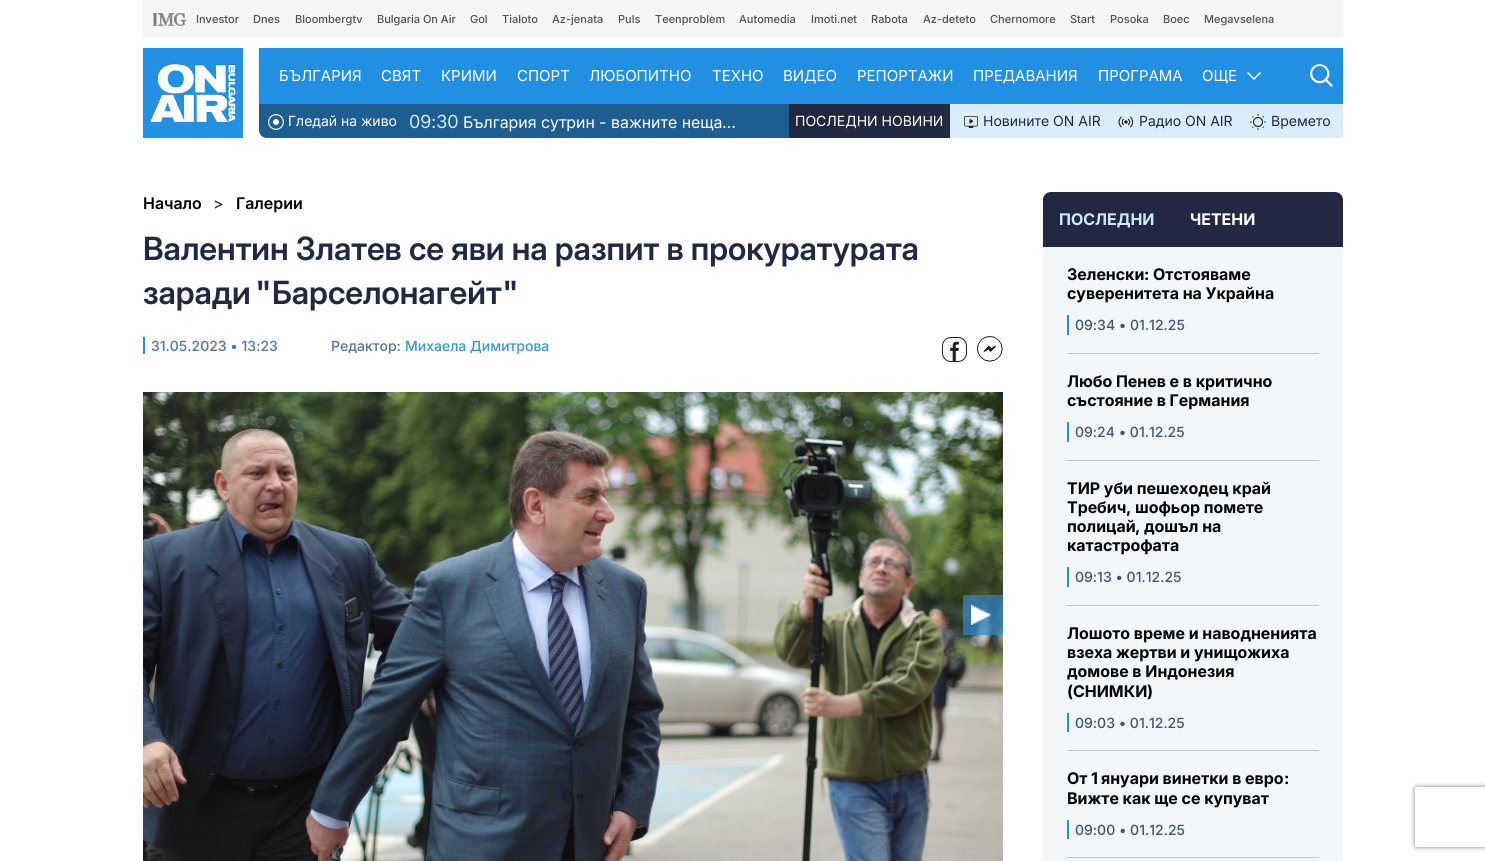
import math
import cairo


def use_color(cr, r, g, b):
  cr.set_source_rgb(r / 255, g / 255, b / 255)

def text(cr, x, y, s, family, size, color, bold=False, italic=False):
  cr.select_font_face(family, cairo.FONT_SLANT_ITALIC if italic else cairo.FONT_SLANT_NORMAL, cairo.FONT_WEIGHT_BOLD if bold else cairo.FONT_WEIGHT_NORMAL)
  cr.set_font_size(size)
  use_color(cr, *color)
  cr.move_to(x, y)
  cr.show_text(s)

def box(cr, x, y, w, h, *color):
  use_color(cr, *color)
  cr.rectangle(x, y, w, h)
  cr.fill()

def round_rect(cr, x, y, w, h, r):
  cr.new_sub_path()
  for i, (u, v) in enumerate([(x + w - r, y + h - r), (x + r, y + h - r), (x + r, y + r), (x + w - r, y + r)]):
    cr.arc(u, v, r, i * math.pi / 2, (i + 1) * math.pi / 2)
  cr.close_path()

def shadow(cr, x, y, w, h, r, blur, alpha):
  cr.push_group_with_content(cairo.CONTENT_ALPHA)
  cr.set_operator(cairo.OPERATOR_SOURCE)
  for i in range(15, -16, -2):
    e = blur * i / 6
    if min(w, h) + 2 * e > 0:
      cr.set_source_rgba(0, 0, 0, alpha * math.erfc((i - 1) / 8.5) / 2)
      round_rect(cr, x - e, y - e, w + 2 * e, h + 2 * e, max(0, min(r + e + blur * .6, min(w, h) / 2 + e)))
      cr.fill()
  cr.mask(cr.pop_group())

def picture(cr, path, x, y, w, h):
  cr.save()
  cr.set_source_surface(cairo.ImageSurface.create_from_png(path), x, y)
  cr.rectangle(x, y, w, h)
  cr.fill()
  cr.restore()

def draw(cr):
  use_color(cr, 255, 255, 255)
  cr.paint()
  box(cr, 143, 0, 1200, 38, 245, 245, 245)
  picture(cr, "img_01.png", 153, 13, 34, 13)
  picture(cr, "img_02.png", 143, 48, 100, 90)
  box(cr, 259, 48, 1084, 56, 33, 144, 226)
  cr.new_path()
  cr.move_to(1248, 73)
  cr.line_to(1254, 79)
  cr.line_to(1260, 73)
  use_color(cr, 255, 255, 255)
  cr.set_line_width(1.5)
  cr.set_line_cap(cairo.LINE_CAP_ROUND)
  cr.set_line_join(cairo.LINE_JOIN_ROUND)
  cr.stroke()
  picture(cr, "img_03.png", 1310, 64, 23, 23)
  use_color(cr, 29, 93, 143)
  cr.new_path()
  cr.move_to(259, 104)
  cr.line_to(1343, 104)
  cr.line_to(1343, 138)
  cr.line_to(267, 138)
  cr.curve_to(262.5, 138, 259, 134.5, 259, 130)
  cr.close_path()
  cr.fill()
  picture(cr, "img_04.png", 268, 114, 16, 16)
  box(cr, 789, 104, 161, 34, 34, 40, 66)
  box(cr, 950, 104, 393, 34, 219, 237, 250)
  picture(cr, "img_05.png", 964, 116, 14, 12)
  picture(cr, "img_06.png", 1118, 116, 16, 12)
  picture(cr, "img_07.png", 1250, 114, 16, 16)
  box(cr, 143, 337, 2, 17, 33, 144, 226)
  picture(cr, "img_08.png", 942, 337, 25, 25)
  picture(cr, "img_09.png", 977, 336, 26, 26)
  picture(cr, "img_10.png", 143, 392, 860, 469)
  cr.set_source_rgba(0.192, 0.529, 0.796, 0.7)
  cr.rectangle(963, 595, 40, 40)
  cr.fill()
  picture(cr, "img_11.png", 971, 605, 20, 20)
  use_color(cr, 34, 40, 66)
  cr.new_path()
  cr.move_to(1051, 192)
  cr.line_to(1335, 192)
  cr.curve_to(1339.5, 192, 1343, 195.5, 1343, 200)
  cr.line_to(1343, 247)
  cr.line_to(1043, 247)
  cr.line_to(1043, 200)
  cr.curve_to(1043, 195.5, 1046.5, 192, 1051, 192)
  cr.close_path()
  cr.fill()
  box(cr, 1043, 247, 300, 614, 243, 247, 250)
  box(cr, 1067, 353, 252, 1, 179, 199, 214)
  box(cr, 1067, 315, 2, 20, 33, 144, 226)
  box(cr, 1067, 460, 252, 1, 179, 199, 214)
  box(cr, 1067, 422, 2, 20, 33, 144, 226)
  box(cr, 1067, 605, 252, 1, 179, 199, 214)
  box(cr, 1067, 567, 2, 20, 33, 144, 226)
  box(cr, 1067, 750, 252, 1, 179, 199, 214)
  box(cr, 1067, 713, 2, 19, 33, 144, 226)
  box(cr, 1067, 857, 252, 1, 179, 199, 214)
  box(cr, 1067, 820, 2, 19, 33, 144, 226)
  cr.save()
  cr.set_fill_rule(cairo.FILL_RULE_EVEN_ODD)
  cr.new_path()
  cr.move_to(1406, 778)
  cr.line_to(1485, 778)
  cr.line_to(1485, 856)
  cr.line_to(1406, 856)
  cr.close_path()
  cr.move_to(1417, 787)
  cr.line_to(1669, 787)
  cr.curve_to(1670, 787, 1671, 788, 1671, 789)
  cr.line_to(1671, 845)
  cr.curve_to(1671, 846, 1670, 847, 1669, 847)
  cr.line_to(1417, 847)
  cr.curve_to(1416, 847, 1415, 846, 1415, 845)
  cr.line_to(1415, 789)
  cr.curve_to(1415, 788, 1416, 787, 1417, 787)
  cr.close_path()
  cr.clip()
  use_color(cr, 128, 128, 128)
  shadow(cr, 1415, 787, 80, 60, 2, 2.5, 1)
  cr.restore()
  text(cr, 196, 23, "Investor", "Inter Medium", 11, (82, 82, 82))
  text(cr, 253, 23, "Dnes", "Inter Medium", 11, (82, 82, 82))
  text(cr, 295, 23, "Bloombergtv", "Inter Medium", 11, (82, 82, 82))
  text(cr, 377, 23, "Bulgaria On Air", "Inter Medium", 11, (82, 82, 82))
  text(cr, 470, 23, "Gol", "Inter Medium", 11, (82, 82, 82))
  text(cr, 502, 23, "Tialoto", "Inter Medium", 11, (82, 82, 82))
  text(cr, 552, 23, "Az-jenata", "Inter Medium", 11, (82, 82, 82))
  text(cr, 618, 23, "Puls", "Inter Medium", 11, (82, 82, 82))
  text(cr, 655, 23, "Teenproblem", "Inter Medium", 11, (82, 82, 82))
  text(cr, 739, 23, "Automedia", "Inter Medium", 11, (82, 82, 82))
  text(cr, 811, 23, "Imoti.net", "Inter Medium", 11, (82, 82, 82))
  text(cr, 871, 23, "Rabota", "Inter Medium", 11, (82, 82, 82))
  text(cr, 923, 23, "Az-deteto", "Inter Medium", 11, (82, 82, 82))
  text(cr, 990, 23, "Chernomore", "Inter Medium", 11, (82, 82, 82))
  text(cr, 1070, 23, "Start", "Inter Medium", 11, (82, 82, 82))
  text(cr, 1110, 23, "Posoka", "Inter Medium", 11, (82, 82, 82))
  text(cr, 1163, 23, "Boec", "Inter Medium", 11, (82, 82, 82))
  text(cr, 1204, 23, "Megavselena", "Inter Medium", 11, (82, 82, 82))
  text(cr, 279, 81, "БЪЛГАРИЯ", "Inter", 15, (255, 255, 255))
  text(cr, 381, 81, "СВЯТ", "Inter", 15, (255, 255, 255))
  text(cr, 441, 81, "КРИМИ", "Inter", 15, (255, 255, 255))
  text(cr, 517, 81, "СПОРТ", "Inter", 15, (255, 255, 255))
  text(cr, 589, 81, "ЛЮБОПИТНО", "Inter", 15, (255, 255, 255))
  text(cr, 712, 81, "ТЕХНО", "Inter", 15, (255, 255, 255))
  text(cr, 783, 81, "ВИДЕО", "Inter", 15, (255, 255, 255))
  text(cr, 857, 81, "РЕПОРТАЖИ", "Inter", 15, (255, 255, 255))
  text(cr, 973, 81, "ПРЕДАВАНИЯ", "Inter", 15, (255, 255, 255))
  text(cr, 1098, 81, "ПРОГРАМА", "Inter", 15, (255, 255, 255))
  text(cr, 1202, 81, "ОЩЕ", "Inter", 15, (255, 255, 255))
  text(cr, 288, 126, "Гледай на живо", "Inter", 14, (255, 255, 255))
  text(cr, 409, 128, "09:30", "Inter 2", 18, (206, 234, 255))
  text(cr, 463, 128, "България сутрин", "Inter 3", 16, (255, 255, 255))
  text(cr, 599, 128, "-", "Inter", 16, (255, 255, 255))
  text(cr, 611, 128, "важните неща", "Inter 3", 16, (255, 255, 255))
  text(cr, 722, 128, "...", "Inter", 16, (255, 255, 255))
  text(cr, 795, 126, "ПОСЛЕДНИ НОВИНИ", "Inter", 14, (255, 255, 255))
  text(cr, 983, 126, "Новините ON AIR", "Inter", 14, (34, 40, 66))
  text(cr, 1139, 126, "Радио ON AIR", "Inter", 14, (34, 40, 66))
  text(cr, 1271, 126, "Времето", "Inter", 14, (34, 40, 66))
  text(cr, 143, 209, "Начало", "Inter SemiBold", 16, (0, 0, 0))
  text(cr, 213, 209, ">", "Inter", 16, (34, 34, 34))
  text(cr, 236, 209, "Галерии", "Inter SemiBold", 16, (0, 0, 0))
  text(cr, 143, 260, "Валентин Златев се яви на разпит в прокуратурата", "Inter 2 SemiBold", 32, (34, 40, 66))
  text(cr, 255, 304, "\"", "Inter 3 SemiBold", 32, (34, 40, 66))
  text(cr, 272, 304, "Барселонагейт", "Inter 2 SemiBold", 32, (34, 40, 66))
  text(cr, 502, 304, "\"", "Inter 3 SemiBold", 32, (34, 40, 66))
  text(cr, 143, 304, "заради", "Inter 2 SemiBold", 32, (34, 40, 66))
  text(cr, 151, 351, "31.05.2023 • 13:23", "Inter Medium", 14, (84, 117, 155))
  text(cr, 331, 351, "Редактор:", "Inter Medium", 14, (84, 117, 155))
  text(cr, 405, 351, "Михаела Димитрова", "Inter Medium", 14, (52, 152, 219))
  text(cr, 1059, 225, "ПОСЛЕДНИ", "Inter", 16, (206, 234, 255), bold=True)
  text(cr, 1190, 225, "ЧЕТЕНИ", "Inter", 16, (255, 255, 255), bold=True)
  text(cr, 1067, 280, "Зеленски", "Inter", 16, (0, 0, 0), bold=True)
  text(cr, 1144, 280, ":", "Inter 2", 16, (0, 0, 0), bold=True)
  text(cr, 1153, 280, "Отстояваме", "Inter", 16, (0, 0, 0), bold=True)
  text(cr, 1067, 299, "суверенитета на Украйна", "Inter", 16, (0, 0, 0), bold=True)
  text(cr, 1075, 330, "09:34 • 01.12.25", "Inter Medium", 14, (62, 84, 125))
  text(cr, 1067, 387, "Любо Пенев е в критично", "Inter", 16, (0, 0, 0), bold=True)
  text(cr, 1067, 406, "състояние в Германия", "Inter", 16, (0, 0, 0), bold=True)
  text(cr, 1075, 437, "09:24 • 01.12.25", "Inter Medium", 14, (62, 84, 125))
  text(cr, 1067, 494, "ТИР уби пешеходец край", "Inter", 16, (0, 0, 0), bold=True)
  text(cr, 1067, 513, "Требич", "Inter", 16, (0, 0, 0), bold=True)
  text(cr, 1126, 513, ",", "Inter 2", 16, (0, 0, 0), bold=True)
  text(cr, 1135, 513, "шофьор помете", "Inter", 16, (0, 0, 0), bold=True)
  text(cr, 1067, 532, "полицай", "Inter", 16, (0, 0, 0), bold=True)
  text(cr, 1135, 532, ",", "Inter 2", 16, (0, 0, 0), bold=True)
  text(cr, 1144, 532, "дошъл на", "Inter", 16, (0, 0, 0), bold=True)
  text(cr, 1067, 551, "катастрофата", "Inter", 16, (0, 0, 0), bold=True)
  text(cr, 1075, 582, "09:13 • 01.12.25", "Inter Medium", 14, (62, 84, 125))
  text(cr, 1067, 639, "Лошото време и наводненията", "Inter", 16, (0, 0, 0), bold=True)
  text(cr, 1067, 658, "взеха жертви и унищожиха", "Inter", 16, (0, 0, 0), bold=True)
  text(cr, 1067, 677, "домове в Индонезия", "Inter", 16, (0, 0, 0), bold=True)
  text(cr, 1067, 697, "(", "Inter 2", 16, (0, 0, 0), bold=True)
  text(cr, 1073, 697, "СНИМКИ", "Inter", 16, (0, 0, 0), bold=True)
  text(cr, 1147, 697, ")", "Inter 2", 16, (0, 0, 0), bold=True)
  text(cr, 1075, 728, "09:03 • 01.12.25", "Inter Medium", 14, (62, 84, 125))
  text(cr, 1067, 784, "От", "Inter", 16, (0, 0, 0), bold=True)
  text(cr, 1091, 784, "1", "Inter 2", 16, (0, 0, 0), bold=True)
  text(cr, 1101, 784, "януари винетки в евро", "Inter", 16, (0, 0, 0), bold=True)
  text(cr, 1284, 784, ":", "Inter 2", 16, (0, 0, 0), bold=True)
  text(cr, 1067, 804, "Вижте как ще се купуват", "Inter", 16, (0, 0, 0), bold=True)
  text(cr, 1075, 835, "09:00 • 01.12.25", "Inter Medium", 14, (62, 84, 125))


surface = cairo.ImageSurface(cairo.FORMAT_RGB24, 1485, 861)
cr = cairo.Context(surface)
options = cairo.FontOptions()
options.set_hint_metrics(cairo.HINT_METRICS_OFF)
options.set_hint_style(cairo.HINT_STYLE_NONE)
cr.set_font_options(options)
cr.set_miter_limit(4)
draw(cr)
surface.write_to_png("out.png")
